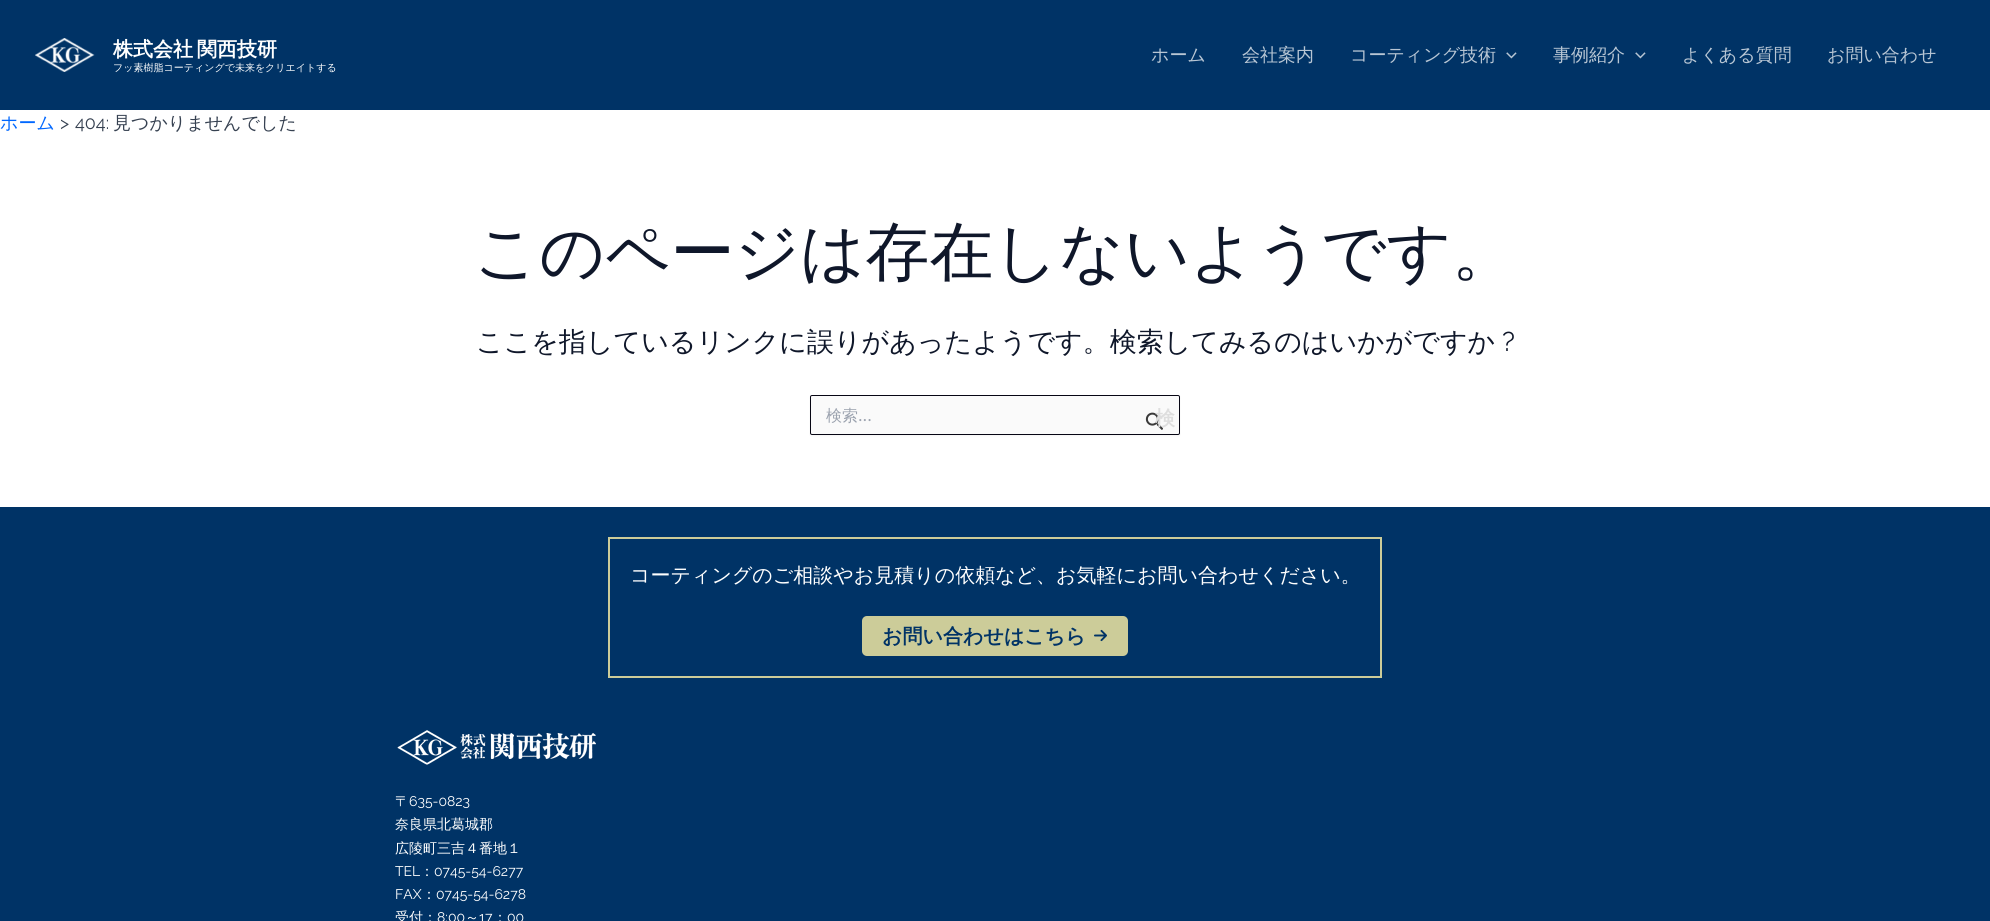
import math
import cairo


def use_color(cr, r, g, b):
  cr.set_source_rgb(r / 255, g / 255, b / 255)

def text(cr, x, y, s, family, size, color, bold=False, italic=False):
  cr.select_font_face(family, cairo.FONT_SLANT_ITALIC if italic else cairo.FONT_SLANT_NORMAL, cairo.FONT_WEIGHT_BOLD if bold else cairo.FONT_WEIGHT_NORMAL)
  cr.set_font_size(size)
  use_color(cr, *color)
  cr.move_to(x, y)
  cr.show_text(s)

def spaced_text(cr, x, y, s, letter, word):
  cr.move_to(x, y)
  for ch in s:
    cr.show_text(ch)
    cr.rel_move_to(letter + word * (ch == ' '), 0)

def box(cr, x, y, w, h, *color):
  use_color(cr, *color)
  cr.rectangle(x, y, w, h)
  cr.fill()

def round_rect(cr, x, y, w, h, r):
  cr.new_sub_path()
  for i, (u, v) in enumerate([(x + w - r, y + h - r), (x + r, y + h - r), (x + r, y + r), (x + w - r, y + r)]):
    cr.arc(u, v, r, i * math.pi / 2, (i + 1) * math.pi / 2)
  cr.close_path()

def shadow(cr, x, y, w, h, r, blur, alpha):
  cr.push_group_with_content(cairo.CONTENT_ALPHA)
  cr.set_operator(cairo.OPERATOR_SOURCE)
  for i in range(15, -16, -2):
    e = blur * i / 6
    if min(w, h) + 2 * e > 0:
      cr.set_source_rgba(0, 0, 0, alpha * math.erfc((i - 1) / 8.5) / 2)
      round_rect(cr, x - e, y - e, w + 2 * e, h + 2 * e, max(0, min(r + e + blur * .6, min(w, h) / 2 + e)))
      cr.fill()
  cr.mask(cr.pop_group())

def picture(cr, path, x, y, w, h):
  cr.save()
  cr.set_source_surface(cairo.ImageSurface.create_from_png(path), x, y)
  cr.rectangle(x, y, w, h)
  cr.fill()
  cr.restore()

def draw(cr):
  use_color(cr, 255, 255, 255)
  cr.paint()
  box(cr, 0, 0, 1990, 110, 0, 51, 102)
  picture(cr, "img_01.png", 35, 38, 60, 34)
  picture(cr, "img_02.png", 1506, 52, 11, 7)
  picture(cr, "img_02.png", 1635, 52, 11, 7)
  use_color(cr, 0, 0, 0)
  shadow(cr, 810, 396, 370, 40, 2, 1, 0.05)
  use_color(cr, 250, 250, 250)
  round_rect(cr, 810.5, 395.5, 369, 39, 1.5)
  cr.fill_preserve()
  use_color(cr, 7, 6, 20)
  cr.set_line_width(1)
  cr.stroke()
  picture(cr, "img_03.png", 1145, 412, 18, 18)
  box(cr, 0, 507, 1990, 414, 0, 51, 102)
  cr.rectangle(609, 538, 772, 139)
  use_color(cr, 204, 204, 153)
  cr.set_line_width(2)
  cr.stroke()
  round_rect(cr, 862, 616, 266, 40, 5)
  cr.fill()
  picture(cr, "img_04.png", 1094, 629, 13, 13)
  picture(cr, "img_05.png", 397, 730, 199, 35)
  cr.select_font_face("WenQuanYi Zen Hei", cairo.FONT_SLANT_NORMAL, cairo.FONT_WEIGHT_BOLD)
  cr.set_font_size(20)
  use_color(cr, 255, 255, 255)
  spaced_text(cr, 113, 56, "株式会社 関西技研", 0, -2)
  text(cr, 113, 71, "フッ素樹脂コーティングで未来をクリエイトする", "WenQuanYi Zen Hei Medium", 10, (255, 255, 255))
  text(cr, 1151, 61, "ホーム", "WenQuanYi Zen Hei Medium", 18, (184, 198, 212))
  text(cr, 1242, 61, "会社案内", "WenQuanYi Zen Hei Medium", 18, (184, 198, 212))
  text(cr, 1350, 61, "コーティング技術", "WenQuanYi Zen Hei Medium", 18, (184, 198, 212))
  text(cr, 1553, 61, "事例紹介", "WenQuanYi Zen Hei Medium", 18, (184, 198, 212))
  text(cr, 1682, 61, "よくある質問", "WenQuanYi Zen Hei Medium", 18, (184, 198, 212))
  text(cr, 1827, 61, "お問い合わせ", "WenQuanYi Zen Hei Medium", 18, (184, 198, 212))
  text(cr, 0, 129, "ホーム", "WenQuanYi Zen Hei Medium", 18, (0, 103, 255))
  text(cr, 60, 129, ">", "Raleway", 18, (54, 65, 81))
  text(cr, 75, 129, "404:", "Raleway", 18, (54, 65, 81))
  text(cr, 113, 129, "見つかりませんでした", "WenQuanYi Zen Hei Medium", 18, (54, 65, 81))
  text(cr, 474, 274, "このページは存在しないようです。", "WenQuanYi Zen Hei Medium", 64, (15, 23, 42))
  text(cr, 476, 351, "ここを指しているリンクに誤りがあったようです。検索してみるのはいかがですか", "WenQuanYi Zen Hei Medium", 27, (15, 23, 42))
  text(cr, 1502, 351, "?", "Raleway", 27, (15, 23, 42))
  text(cr, 826, 421, "検索", "WenQuanYi Zen Hei Medium", 16, (156, 163, 175))
  text(cr, 858, 421, "...", "Inter", 16, (156, 163, 175))
  text(cr, 1155, 425, "検", "WenQuanYi Zen Hei", 20, (222, 222, 222), bold=True)
  text(cr, 630, 582, "コーティングのご相談やお見積りの依頼など、お気軽にお問い合わせください。", "WenQuanYi Zen Hei Medium", 20, (255, 255, 255))
  text(cr, 882, 643, "お問い合わせはこちら", "WenQuanYi Zen Hei", 20, (0, 51, 102), bold=True)
  text(cr, 395, 806, "〒", "WenQuanYi Zen Hei Medium", 14, (255, 255, 255))
  text(cr, 409, 806, "635-0823", "Raleway", 14, (255, 255, 255))
  text(cr, 395, 829, "奈良県北葛城郡", "WenQuanYi Zen Hei Medium", 14, (255, 255, 255))
  text(cr, 395, 853, "広陵町三吉４番地１", "WenQuanYi Zen Hei Medium", 14, (255, 255, 255))
  text(cr, 395, 876, "TEL", "Raleway", 14, (255, 255, 255))
  text(cr, 420, 876, "：", "WenQuanYi Zen Hei Medium", 14, (255, 255, 255))
  text(cr, 434, 876, "0745-54-6277", "Raleway", 14, (255, 255, 255))
  text(cr, 395, 899, "FAX", "Raleway", 14, (255, 255, 255))
  text(cr, 422, 899, "：", "WenQuanYi Zen Hei Medium", 14, (255, 255, 255))
  text(cr, 436, 899, "0745-54-6278", "Raleway", 14, (255, 255, 255))
  text(cr, 395, 922, "受付：", "WenQuanYi Zen Hei Medium", 14, (255, 255, 255))
  text(cr, 437, 922, "8:00", "Raleway", 14, (255, 255, 255))
  text(cr, 465, 922, "～", "WenQuanYi Zen Hei Medium", 14, (255, 255, 255))
  text(cr, 479, 922, "17", "Raleway", 14, (255, 255, 255))
  text(cr, 493, 922, "：", "WenQuanYi Zen Hei Medium", 14, (255, 255, 255))
  text(cr, 507, 922, "00", "Raleway", 14, (255, 255, 255))


surface = cairo.ImageSurface(cairo.FORMAT_RGB24, 1990, 921)
cr = cairo.Context(surface)
options = cairo.FontOptions()
options.set_hint_metrics(cairo.HINT_METRICS_OFF)
options.set_hint_style(cairo.HINT_STYLE_NONE)
cr.set_font_options(options)
cr.set_miter_limit(4)
draw(cr)
surface.write_to_png("out.png")
